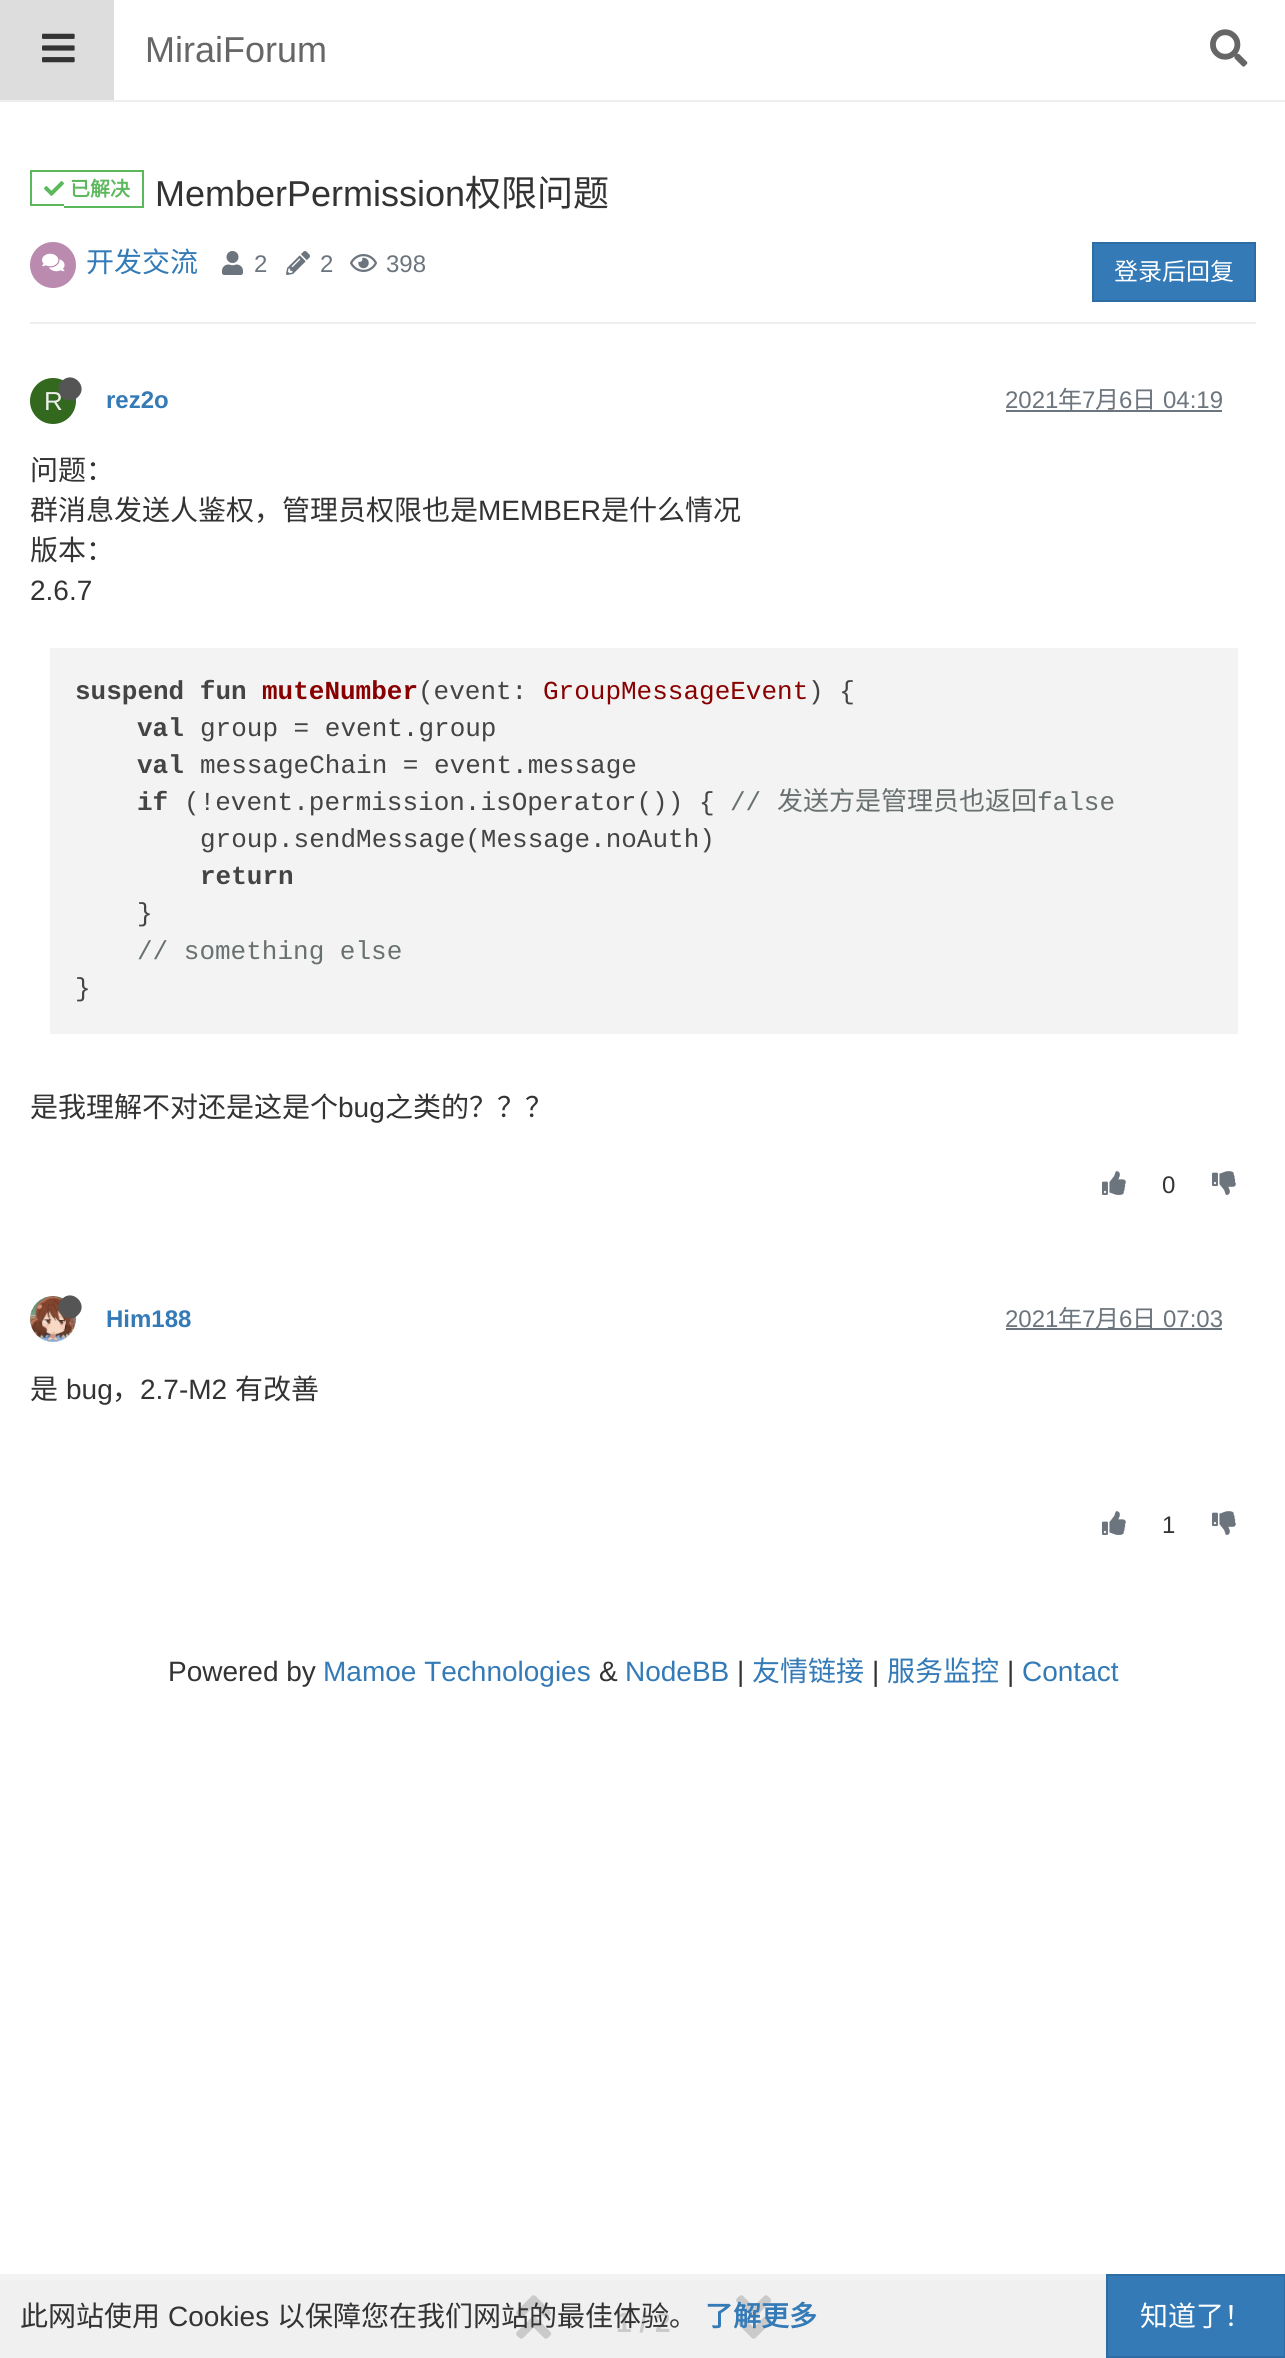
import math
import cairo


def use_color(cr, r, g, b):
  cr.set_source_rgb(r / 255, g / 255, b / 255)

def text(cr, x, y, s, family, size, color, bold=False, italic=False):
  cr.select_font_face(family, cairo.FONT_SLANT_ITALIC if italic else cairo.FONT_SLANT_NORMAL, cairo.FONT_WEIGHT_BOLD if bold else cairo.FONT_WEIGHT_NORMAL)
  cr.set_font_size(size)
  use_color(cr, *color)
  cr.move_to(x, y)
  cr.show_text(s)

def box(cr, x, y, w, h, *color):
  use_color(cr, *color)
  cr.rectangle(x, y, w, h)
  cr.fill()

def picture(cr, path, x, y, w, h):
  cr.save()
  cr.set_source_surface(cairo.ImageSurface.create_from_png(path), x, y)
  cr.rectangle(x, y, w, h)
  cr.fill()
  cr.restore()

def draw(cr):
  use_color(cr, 255, 255, 255)
  cr.paint()
  box(cr, 0, 2274, 1106, 6, 243, 243, 243)
  box(cr, 0, 100, 1285, 2, 238, 238, 238)
  box(cr, 0, 0, 114, 100, 221, 221, 221)
  picture(cr, "img_01.png", 42, 33, 33, 30)
  picture(cr, "img_02.png", 1210, 29, 38, 38)
  box(cr, 30, 170, 114, 2, 92, 184, 92)
  box(cr, 30, 204, 34, 2, 92, 184, 92)
  box(cr, 30, 170, 2, 36, 92, 184, 92)
  box(cr, 142, 170, 2, 38, 92, 184, 92)
  box(cr, 64, 206, 80, 2, 92, 184, 92)
  picture(cr, "img_03.png", 44, 181, 20, 15)
  box(cr, 30, 322, 1226, 2, 238, 238, 238)
  use_color(cr, 186, 139, 175)
  cr.arc(53, 265, 23, 0, 2 * math.pi)
  cr.fill()
  picture(cr, "img_04.png", 42, 253, 23, 19)
  picture(cr, "img_05.png", 222, 251, 21, 24)
  picture(cr, "img_06.png", 286, 251, 24, 24)
  picture(cr, "img_07.png", 350, 254, 27, 18)
  use_color(cr, 51, 122, 183)
  cr.rectangle(1093, 243, 162, 58)
  cr.fill_preserve()
  use_color(cr, 46, 109, 164)
  cr.stroke()
  use_color(cr, 51, 105, 30)
  cr.arc(53, 401, 23, 0, 2 * math.pi)
  cr.fill()
  box(cr, 1006, 410, 216, 2, 108, 117, 125)
  box(cr, 50, 648, 1188, 386, 243, 243, 243)
  picture(cr, "img_08.png", 1102, 1171, 24, 24)
  picture(cr, "img_09.png", 1212, 1171, 24, 24)
  picture(cr, "img_10.png", 30, 1296, 46, 46)
  use_color(cr, 85, 85, 85)
  cr.new_path()
  cr.move_to(62, 1299)
  cr.curve_to(72.5, 1288, 89, 1304.5, 78, 1315)
  cr.curve_to(67.5, 1326, 51, 1309.5, 62, 1299)
  cr.close_path()
  cr.fill()
  box(cr, 1006, 1328, 216, 2, 108, 117, 125)
  picture(cr, "img_08.png", 1102, 1511, 24, 24)
  picture(cr, "img_09.png", 1212, 1511, 24, 24)
  box(cr, 0, 2280, 1106, 78, 240, 240, 240)
  picture(cr, "img_11.png", 516, 2295, 36, 44)
  picture(cr, "img_12.png", 736, 2295, 36, 44)
  use_color(cr, 51, 122, 183)
  cr.rectangle(1107, 2275, 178, 82)
  cr.fill_preserve()
  use_color(cr, 46, 109, 164)
  cr.stroke()
  text(cr, 145, 62, "MiraiForum", "Liberation Sans", 36, (102, 102, 102))
  text(cr, 70, 196, "已解决", "Noto Sans CJK SC", 20, (92, 184, 92), bold=True)
  text(cr, 155, 206, "MemberPermission", "Liberation Sans", 36, (51, 51, 51))
  text(cr, 465, 206, "权限问题", "Noto Sans CJK SC", 36, (51, 51, 51))
  text(cr, 86, 272, "开发交流", "Noto Sans CJK SC", 28, (51, 122, 183))
  text(cr, 254, 272, "2", "Liberation Sans", 24, (108, 117, 125))
  text(cr, 320, 272, "2", "Liberation Sans", 24, (108, 117, 125))
  text(cr, 386, 272, "398", "Liberation Sans", 24, (108, 117, 125))
  text(cr, 1114, 280, "登录后回复", "Noto Sans CJK SC", 24, (255, 255, 255))
  text(cr, 44, 410, "R", "Liberation Sans", 26, (238, 238, 238))
  use_color(cr, 85, 85, 85)
  cr.new_path()
  cr.move_to(62, 381)
  cr.curve_to(72.5, 370, 89, 386.5, 78, 397)
  cr.curve_to(67.5, 408, 51, 391.5, 62, 381)
  cr.close_path()
  cr.fill()
  text(cr, 106, 408, "rez2o", "Liberation Sans", 24, (51, 122, 183), bold=True)
  text(cr, 1005, 408, "2021", "Liberation Sans", 24, (108, 117, 125))
  text(cr, 1058, 408, "年", "Noto Sans CJK SC", 24, (108, 117, 125))
  text(cr, 1082, 408, "7", "Liberation Sans", 24, (108, 117, 125))
  text(cr, 1095, 408, "月", "Noto Sans CJK SC", 24, (108, 117, 125))
  text(cr, 1119, 408, "6", "Liberation Sans", 24, (108, 117, 125))
  text(cr, 1132, 408, "日", "Noto Sans CJK SC", 24, (108, 117, 125))
  text(cr, 1163, 408, "04:19", "Liberation Sans", 24, (108, 117, 125))
  text(cr, 30, 480, "问题：", "Noto Sans CJK SC", 28, (51, 51, 51))
  text(cr, 30, 520, "群消息发送人鉴权，管理员权限也是", "Noto Sans CJK SC", 28, (51, 51, 51))
  text(cr, 478, 520, "MEMBER", "Liberation Sans", 28, (51, 51, 51))
  text(cr, 601, 520, "是什么情况", "Noto Sans CJK SC", 28, (51, 51, 51))
  text(cr, 30, 560, "版本：", "Noto Sans CJK SC", 28, (51, 51, 51))
  text(cr, 30, 600, "2.6.7", "Liberation Sans", 28, (51, 51, 51))
  text(cr, 75, 699, "suspend fun", "Liberation Mono", 26, (68, 68, 68), bold=True)
  text(cr, 262, 699, "muteNumber", "Liberation Mono", 26, (136, 0, 0), bold=True)
  text(cr, 418, 699, "(event:", "Liberation Mono", 26, (68, 68, 68))
  text(cr, 543, 699, "GroupMessageEvent", "Liberation Mono", 26, (136, 0, 0))
  text(cr, 808, 699, ") {", "Liberation Mono", 26, (68, 68, 68))
  text(cr, 137, 736, "val", "Liberation Mono", 26, (68, 68, 68), bold=True)
  text(cr, 200, 736, "group = event.group", "Liberation Mono", 26, (68, 68, 68))
  text(cr, 137, 773, "val", "Liberation Mono", 26, (68, 68, 68), bold=True)
  text(cr, 200, 773, "messageChain = event.message", "Liberation Mono", 26, (68, 68, 68))
  text(cr, 137, 810, "if", "Liberation Mono", 26, (68, 68, 68), bold=True)
  text(cr, 184, 810, "(!event.permission.isOperator()) {", "Liberation Mono", 26, (68, 68, 68))
  text(cr, 730, 810, "//", "Liberation Mono", 26, (105, 112, 112))
  text(cr, 777, 810, "发送方是管理员也返回", "Noto Sans CJK SC", 26, (105, 112, 112))
  text(cr, 1037, 810, "false", "Liberation Mono", 26, (105, 112, 112))
  text(cr, 200, 847, "group.sendMessage(Message.noAuth)", "Liberation Mono", 26, (68, 68, 68))
  text(cr, 200, 884, "return", "Liberation Mono", 26, (68, 68, 68), bold=True)
  text(cr, 137, 921, "}", "Liberation Mono", 26, (68, 68, 68))
  text(cr, 137, 959, "// something else", "Liberation Mono", 26, (105, 112, 112))
  text(cr, 75, 996, "}", "Liberation Mono", 26, (68, 68, 68))
  text(cr, 30, 1117, "是我理解不对还是这是个", "Noto Sans CJK SC", 28, (51, 51, 51))
  text(cr, 338, 1117, "bug", "Liberation Sans", 28, (51, 51, 51))
  text(cr, 385, 1117, "之类的？？？", "Noto Sans CJK SC", 28, (51, 51, 51))
  text(cr, 1162, 1193, "0", "Liberation Sans", 24, (51, 51, 51))
  text(cr, 106, 1327, "Him188", "Liberation Sans", 24, (51, 122, 183), bold=True)
  text(cr, 1005, 1327, "2021", "Liberation Sans", 24, (108, 117, 125))
  text(cr, 1058, 1327, "年", "Noto Sans CJK SC", 24, (108, 117, 125))
  text(cr, 1082, 1327, "7", "Liberation Sans", 24, (108, 117, 125))
  text(cr, 1095, 1327, "月", "Noto Sans CJK SC", 24, (108, 117, 125))
  text(cr, 1119, 1327, "6", "Liberation Sans", 24, (108, 117, 125))
  text(cr, 1132, 1327, "日", "Noto Sans CJK SC", 24, (108, 117, 125))
  text(cr, 1163, 1327, "07:03", "Liberation Sans", 24, (108, 117, 125))
  text(cr, 30, 1399, "是", "Noto Sans CJK SC", 28, (51, 51, 51))
  text(cr, 66, 1399, "bug", "Liberation Sans", 28, (51, 51, 51))
  text(cr, 112, 1399, "，", "Noto Sans CJK SC", 28, (51, 51, 51))
  text(cr, 140, 1399, "2.7-M2", "Liberation Sans", 28, (51, 51, 51))
  text(cr, 235, 1399, "有改善", "Noto Sans CJK SC", 28, (51, 51, 51))
  text(cr, 1162, 1533, "1", "Liberation Sans", 24, (51, 51, 51))
  text(cr, 616, 2332, "1 / 2", "Liberation Sans", 28, (202, 202, 202), bold=True)
  text(cr, 168, 1681, "Powered by", "Liberation Sans", 28, (51, 51, 51))
  text(cr, 323, 1681, "Mamoe Technologies", "Liberation Sans", 28, (51, 122, 183))
  text(cr, 599, 1681, "&", "Liberation Sans", 28, (51, 51, 51))
  text(cr, 625, 1681, "NodeBB", "Liberation Sans", 28, (51, 122, 183))
  text(cr, 737, 1681, "|", "Liberation Sans", 28, (51, 51, 51))
  text(cr, 752, 1681, "友情链接", "Noto Sans CJK SC", 28, (51, 122, 183))
  text(cr, 872, 1681, "|", "Liberation Sans", 28, (51, 51, 51))
  text(cr, 887, 1681, "服务监控", "Noto Sans CJK SC", 28, (51, 122, 183))
  text(cr, 1007, 1681, "|", "Liberation Sans", 28, (51, 51, 51))
  text(cr, 1022, 1681, "Contact", "Liberation Sans", 28, (51, 122, 183))
  text(cr, 20, 2326, "此网站使用", "Noto Sans CJK SC", 28, (51, 51, 51))
  text(cr, 168, 2326, "Cookies", "Liberation Sans", 28, (51, 51, 51))
  text(cr, 277, 2326, "以保障您在我们网站的最佳体验。", "Noto Sans CJK SC", 28, (51, 51, 51))
  text(cr, 705, 2326, "了解更多", "Noto Sans CJK SC", 28, (51, 122, 183), bold=True)
  text(cr, 1140, 2326, "知道了！", "Noto Sans CJK SC", 28, (255, 255, 255))


surface = cairo.ImageSurface(cairo.FORMAT_RGB24, 1285, 2358)
cr = cairo.Context(surface)
options = cairo.FontOptions()
options.set_hint_metrics(cairo.HINT_METRICS_OFF)
options.set_hint_style(cairo.HINT_STYLE_NONE)
cr.set_font_options(options)
cr.set_miter_limit(4)
draw(cr)
surface.write_to_png("out.png")
